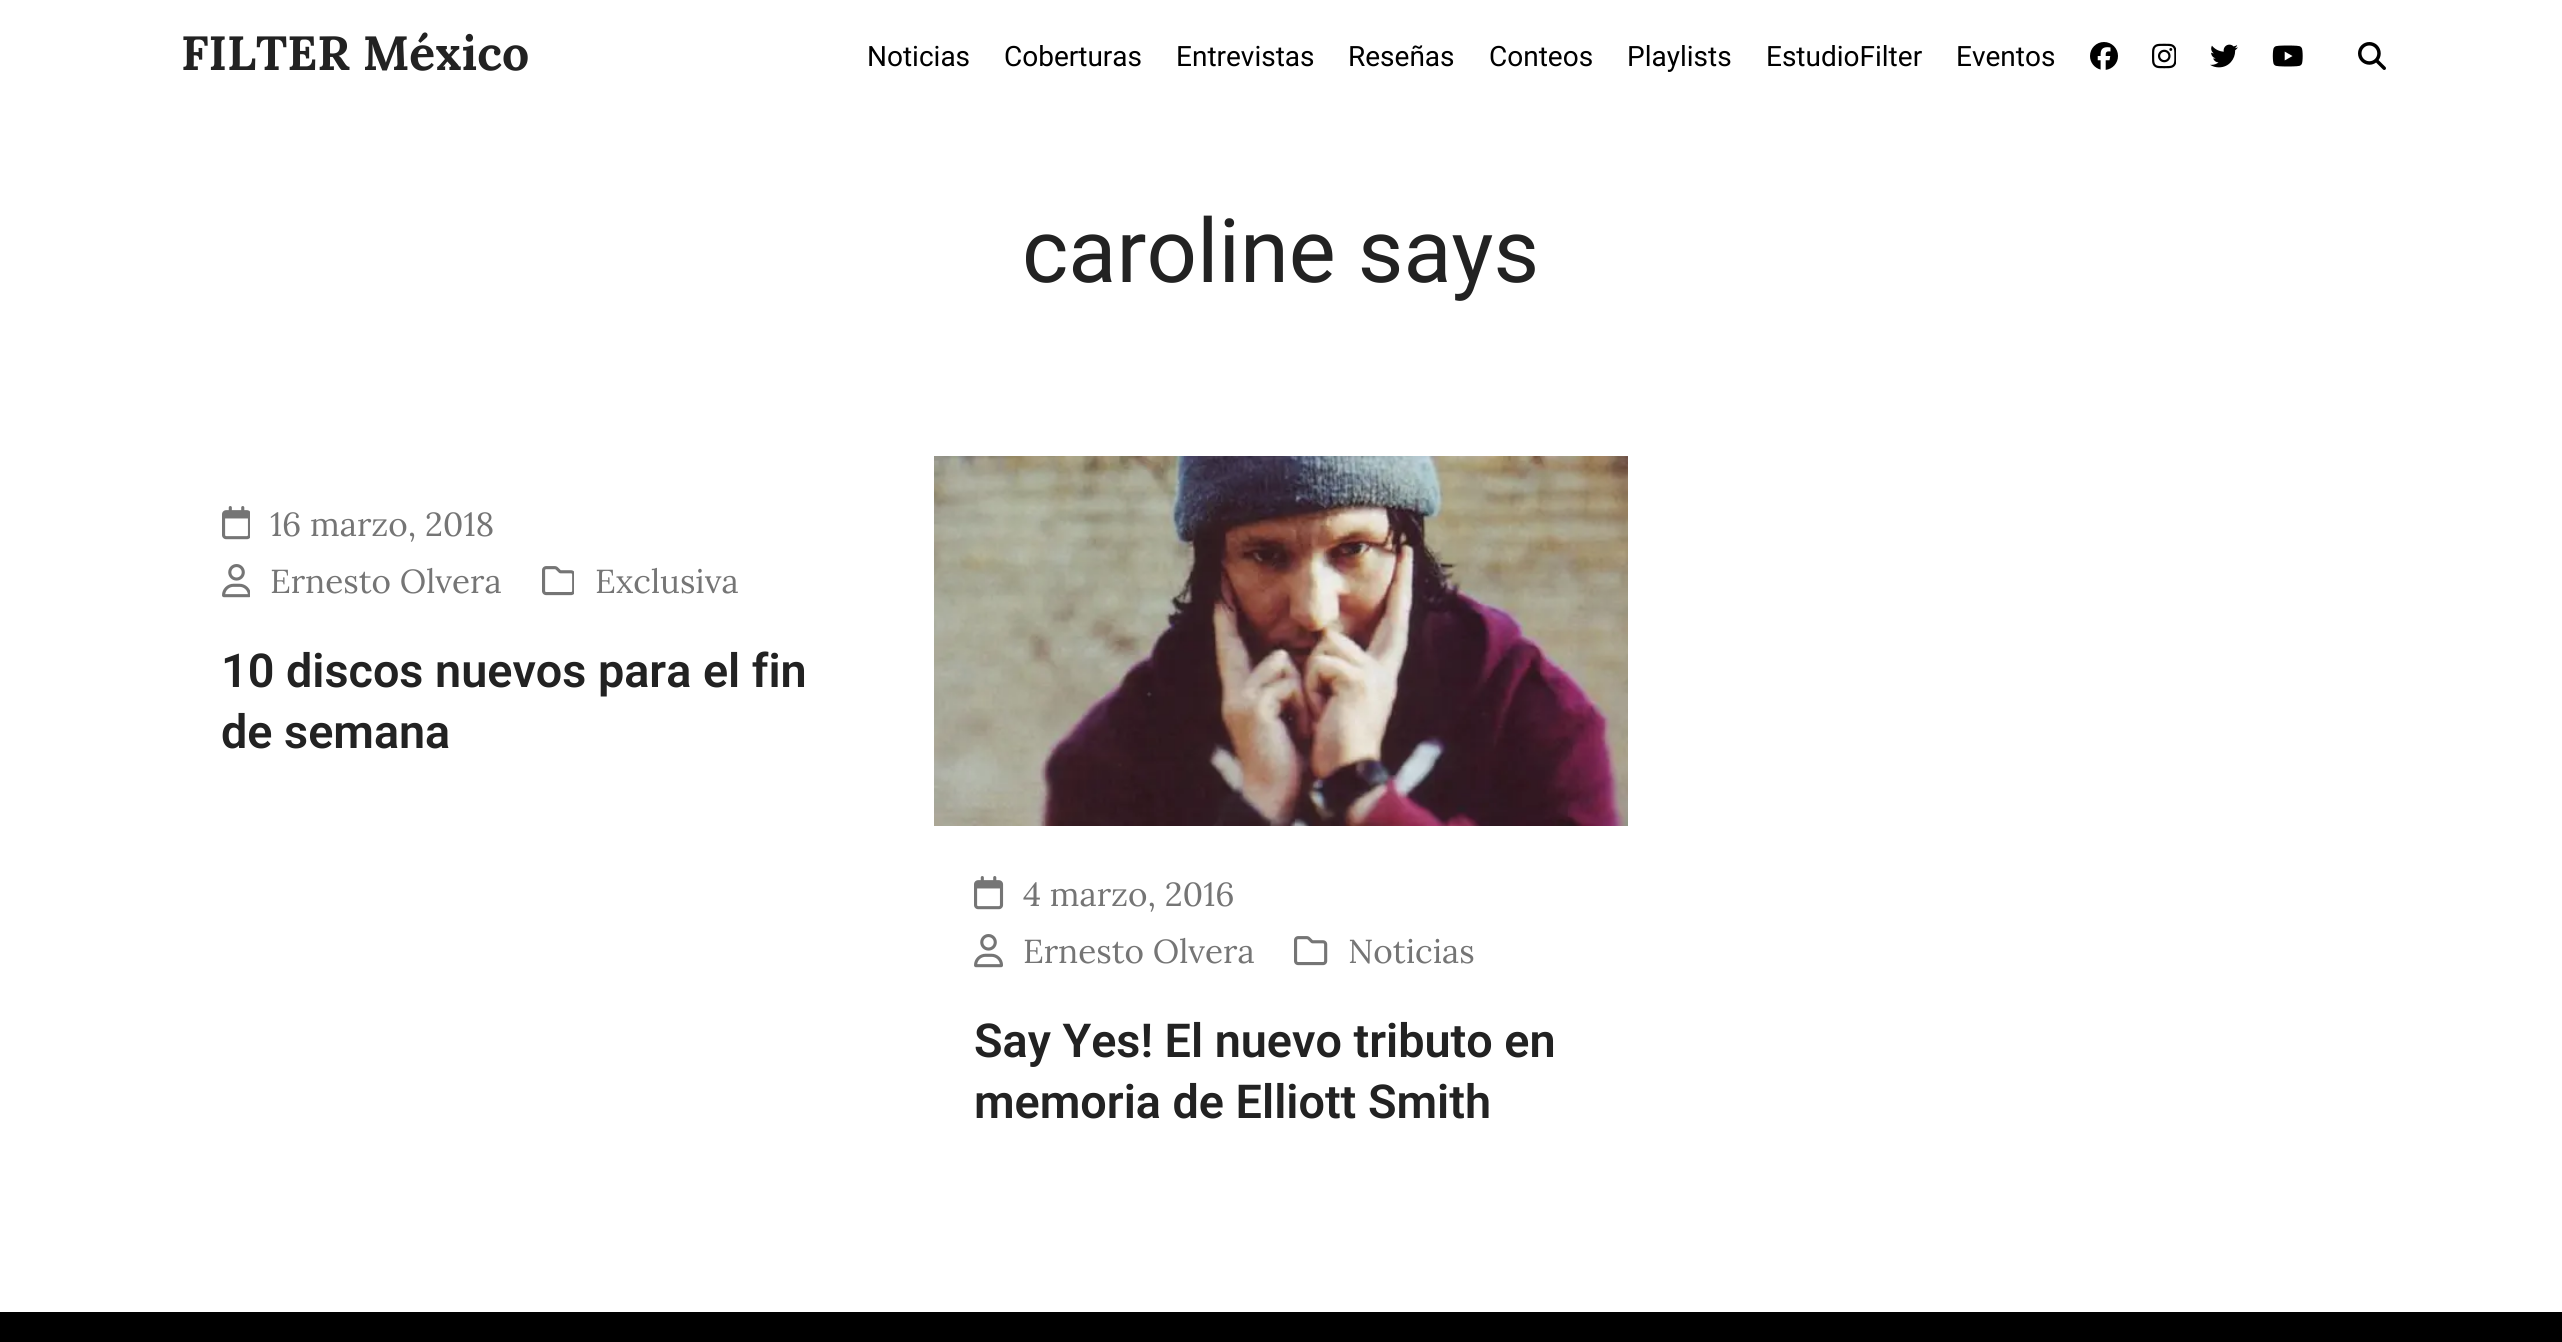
import math
import cairo


def use_color(cr, r, g, b):
  cr.set_source_rgb(r / 255, g / 255, b / 255)

def text(cr, x, y, s, family, size, color, bold=False, italic=False):
  cr.select_font_face(family, cairo.FONT_SLANT_ITALIC if italic else cairo.FONT_SLANT_NORMAL, cairo.FONT_WEIGHT_BOLD if bold else cairo.FONT_WEIGHT_NORMAL)
  cr.set_font_size(size)
  use_color(cr, *color)
  cr.move_to(x, y)
  cr.show_text(s)

def box(cr, x, y, w, h, *color):
  use_color(cr, *color)
  cr.rectangle(x, y, w, h)
  cr.fill()

def picture(cr, path, x, y, w, h):
  cr.save()
  cr.set_source_surface(cairo.ImageSurface.create_from_png(path), x, y)
  cr.rectangle(x, y, w, h)
  cr.fill()
  cr.restore()

def draw(cr):
  use_color(cr, 255, 255, 255)
  cr.paint()
  picture(cr, "img_01.png", 2090, 42, 28, 28)
  picture(cr, "img_02.png", 2152, 43, 24, 26)
  picture(cr, "img_03.png", 2210, 44, 28, 24)
  picture(cr, "img_04.png", 2272, 45, 31, 22)
  picture(cr, "img_05.png", 2358, 42, 28, 28)
  picture(cr, "img_06.png", 222, 506, 28, 34)
  picture(cr, "img_07.png", 222, 564, 28, 34)
  picture(cr, "img_08.png", 542, 566, 32, 30)
  picture(cr, "img_09.png", 934, 456, 694, 370)
  picture(cr, "img_10.png", 974, 876, 30, 34)
  picture(cr, "img_11.png", 974, 934, 29, 34)
  picture(cr, "img_12.png", 1294, 936, 34, 30)
  box(cr, 0, 1312, 2562, 30, 0, 0, 0)
  text(cr, 181, 70, "FILTER México", "Lora", 48, (34, 34, 34), bold=True)
  text(cr, 867, 66, "Noticias", "Roboto", 28, (0, 0, 0))
  text(cr, 1004, 66, "Coberturas", "Roboto", 28, (0, 0, 0))
  text(cr, 1176, 66, "Entrevistas", "Roboto", 28, (0, 0, 0))
  text(cr, 1348, 66, "Reseñas", "Roboto", 28, (0, 0, 0))
  text(cr, 1489, 66, "Conteos", "Roboto", 28, (0, 0, 0))
  text(cr, 1627, 66, "Playlists", "Roboto", 28, (0, 0, 0))
  text(cr, 1766, 66, "EstudioFilter", "Roboto", 28, (0, 0, 0))
  text(cr, 1956, 66, "Eventos", "Roboto", 28, (0, 0, 0))
  text(cr, 1022, 282, "caroline says", "Roboto", 88.5, (34, 34, 34))
  text(cr, 270, 536, "16 marzo, 2018", "Lora", 33.25, (117, 117, 117))
  text(cr, 270, 593, "Ernesto Olvera", "Lora", 33.25, (117, 117, 117))
  text(cr, 595, 593, "Exclusiva", "Lora", 33.25, (117, 117, 117))
  text(cr, 221, 687, "10 discos nuevos para el fin", "Roboto SemiBold", 46.75, (34, 34, 34))
  text(cr, 221, 748, "de semana", "Roboto SemiBold", 46.75, (34, 34, 34))
  text(cr, 1023, 906, "4 marzo, 2016", "Lora", 33.25, (117, 117, 117))
  text(cr, 1023, 963, "Ernesto Olvera", "Lora", 33.25, (117, 117, 117))
  text(cr, 1348, 963, "Noticias", "Lora", 33.25, (117, 117, 117))
  text(cr, 974, 1057, "Say Yes! El nuevo tributo en", "Roboto SemiBold", 46.75, (34, 34, 34))
  text(cr, 974, 1118, "memoria de Elliott Smith", "Roboto SemiBold", 46.75, (34, 34, 34))


surface = cairo.ImageSurface(cairo.FORMAT_RGB24, 2562, 1342)
cr = cairo.Context(surface)
options = cairo.FontOptions()
options.set_hint_metrics(cairo.HINT_METRICS_OFF)
options.set_hint_style(cairo.HINT_STYLE_NONE)
cr.set_font_options(options)
cr.set_miter_limit(4)
draw(cr)
surface.write_to_png("out.png")
